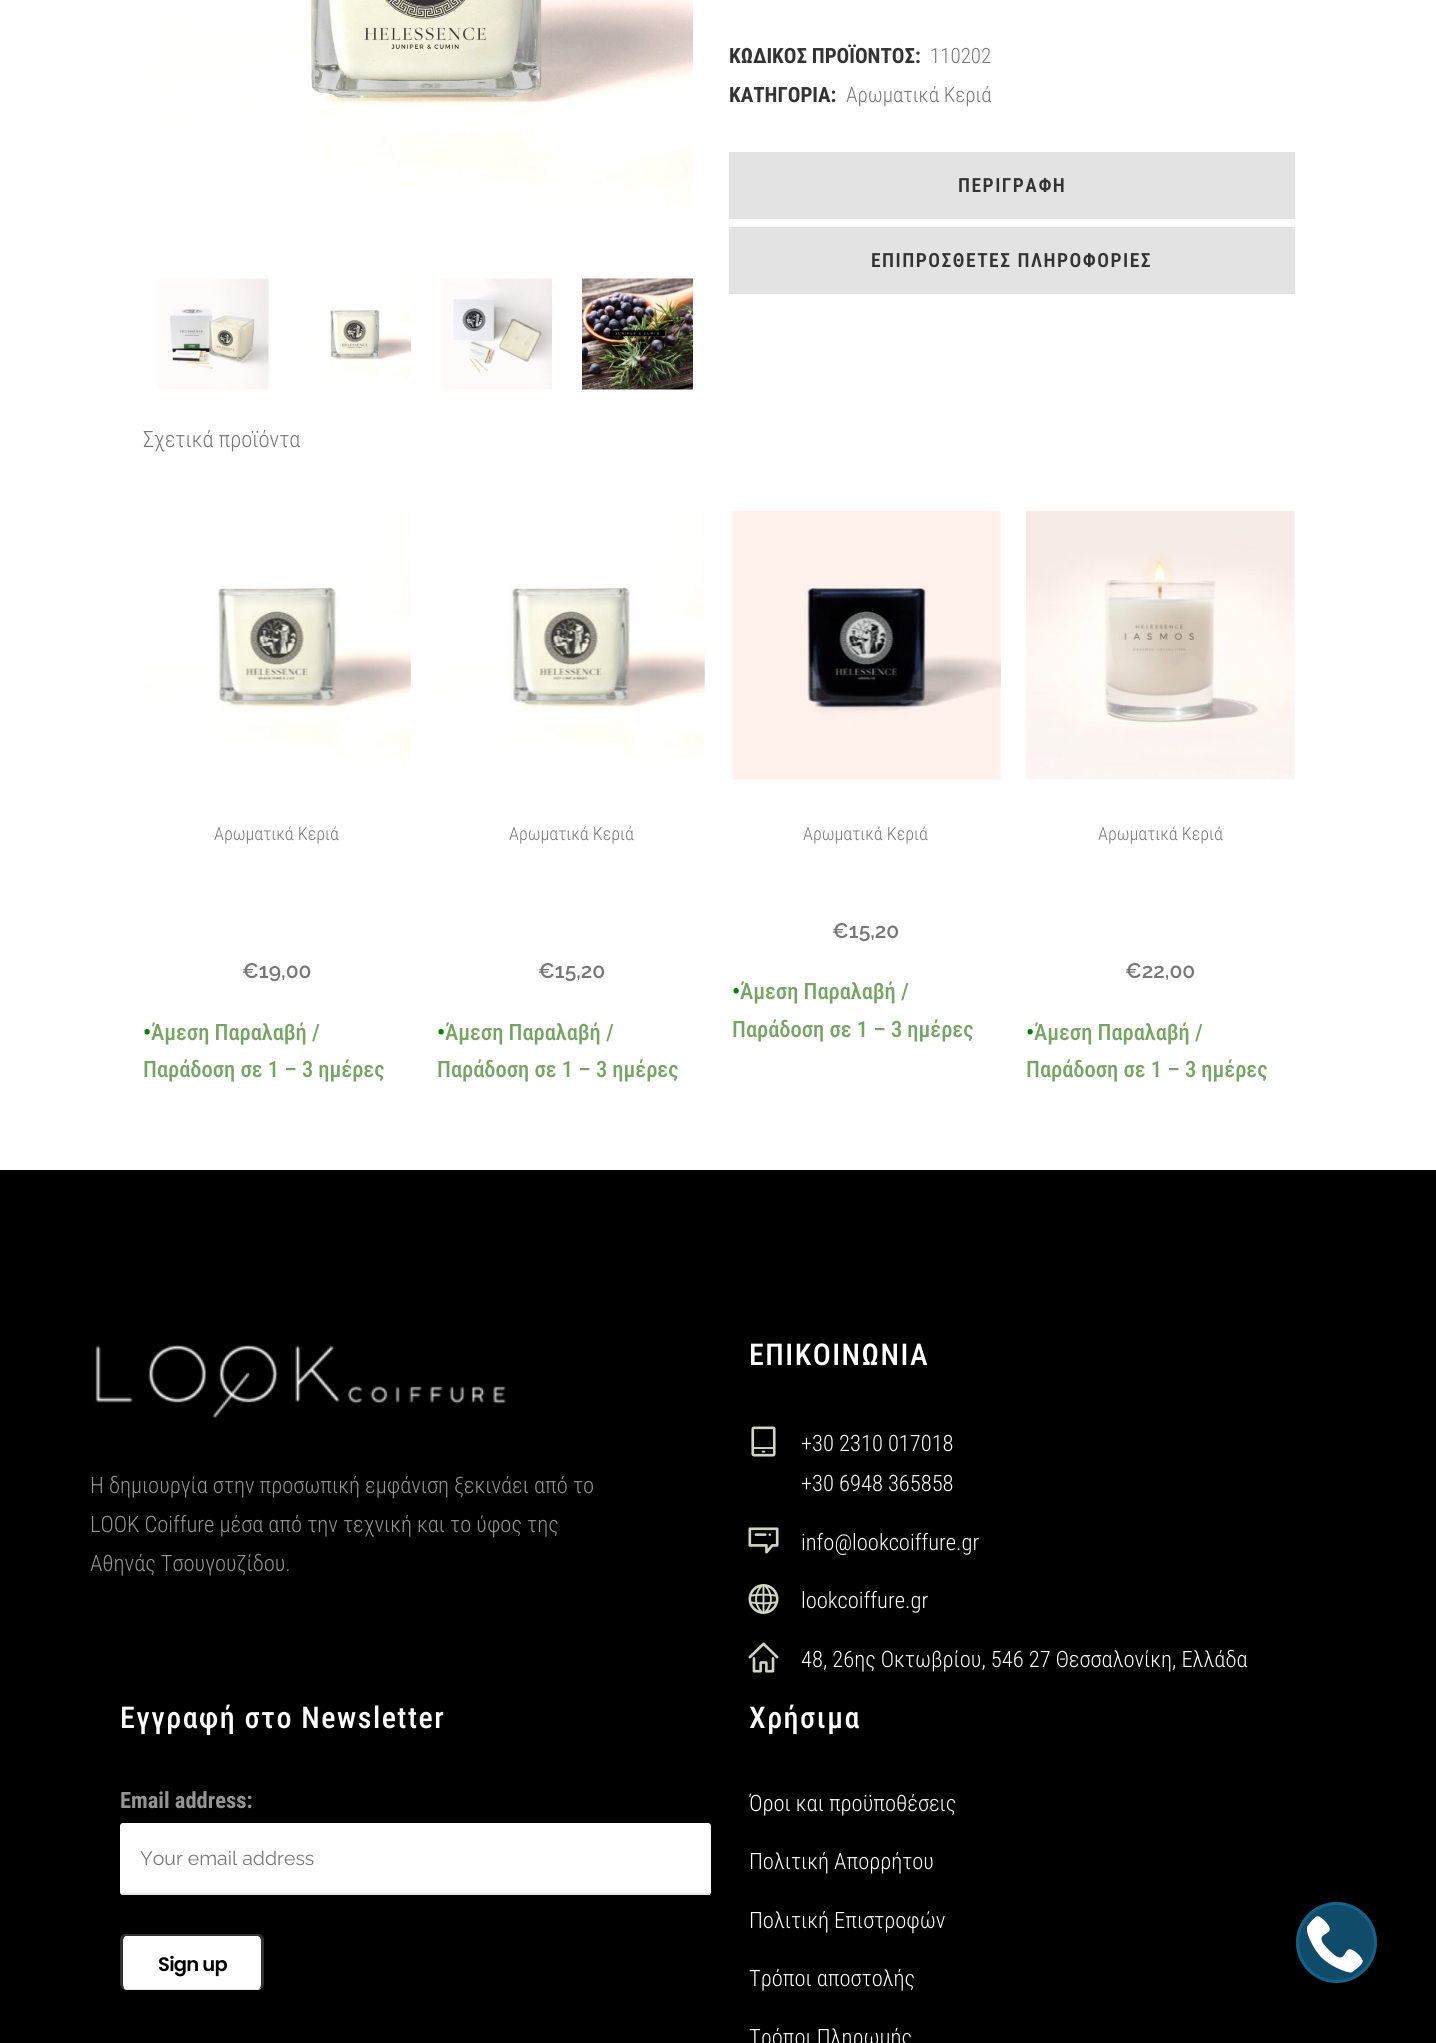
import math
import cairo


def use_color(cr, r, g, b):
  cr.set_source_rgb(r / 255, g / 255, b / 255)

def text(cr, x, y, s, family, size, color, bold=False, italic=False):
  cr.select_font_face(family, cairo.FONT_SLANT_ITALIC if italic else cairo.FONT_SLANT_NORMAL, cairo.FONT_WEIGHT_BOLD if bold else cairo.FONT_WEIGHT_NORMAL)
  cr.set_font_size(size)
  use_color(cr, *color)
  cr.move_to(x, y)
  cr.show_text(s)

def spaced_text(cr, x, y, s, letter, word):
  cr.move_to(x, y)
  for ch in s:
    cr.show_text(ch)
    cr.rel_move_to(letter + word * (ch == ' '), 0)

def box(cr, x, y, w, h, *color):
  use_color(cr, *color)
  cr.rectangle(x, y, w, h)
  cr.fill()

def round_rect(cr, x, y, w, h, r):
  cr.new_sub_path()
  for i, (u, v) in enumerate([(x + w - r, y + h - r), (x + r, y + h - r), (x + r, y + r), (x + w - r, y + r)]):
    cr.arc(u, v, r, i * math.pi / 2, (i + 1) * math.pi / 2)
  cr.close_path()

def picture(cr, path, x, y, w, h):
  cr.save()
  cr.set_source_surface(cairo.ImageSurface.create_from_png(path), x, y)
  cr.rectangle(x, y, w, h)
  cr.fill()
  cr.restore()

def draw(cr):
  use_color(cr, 255, 255, 255)
  cr.paint()
  picture(cr, "img_01.png", 158, 0, 535, 207)
  picture(cr, "img_02.png", 158, 278, 111, 112)
  picture(cr, "img_03.png", 299, 279, 112, 103)
  picture(cr, "img_04.png", 441, 278, 111, 112)
  picture(cr, "img_05.png", 582, 278, 111, 112)
  box(cr, 729, 152, 566, 67, 227, 227, 227)
  box(cr, 729, 227, 566, 67, 227, 227, 227)
  picture(cr, "img_06.png", 143, 511, 268, 249)
  picture(cr, "img_07.png", 437, 511, 268, 249)
  picture(cr, "img_08.png", 732, 511, 269, 269)
  picture(cr, "img_09.png", 1026, 511, 269, 269)
  box(cr, 0, 1170, 1436, 873, 0, 0, 0)
  picture(cr, "img_10.png", 95, 1344, 411, 74)
  picture(cr, "img_11.png", 751, 1426, 25, 31)
  picture(cr, "img_12.png", 748, 1527, 31, 27)
  picture(cr, "img_13.png", 748, 1584, 31, 30)
  picture(cr, "img_14.png", 748, 1642, 31, 31)
  use_color(cr, 255, 255, 255)
  round_rect(cr, 120, 1823, 591, 72, 3)
  cr.fill()
  box(cr, 122, 1893, 588, 2, 230, 230, 230)
  use_color(cr, 255, 255, 255)
  cr.new_path()
  cr.move_to(126, 1936)
  cr.line_to(258, 1936)
  cr.curve_to(260, 1936, 261, 1938, 261, 1940)
  cr.line_to(261, 1984)
  cr.curve_to(261, 1987, 260, 1989, 258, 1989)
  cr.line_to(126, 1989)
  cr.curve_to(124, 1989, 123, 1987, 123, 1984)
  cr.line_to(123, 1940)
  cr.curve_to(123, 1938, 124, 1936, 126, 1936)
  cr.close_path()
  cr.fill()
  use_color(cr, 48, 48, 48)
  cr.new_path()
  cr.move_to(126, 1934)
  cr.curve_to(125, 1934, 123, 1934, 122, 1935)
  cr.line_to(124, 1937)
  cr.line_to(125, 1936)
  cr.line_to(236, 1936)
  cr.line_to(258, 1936)
  cr.line_to(260, 1937)
  cr.line_to(262, 1935)
  cr.curve_to(261, 1934, 259, 1934, 258, 1934)
  cr.close_path()
  cr.fill()
  cr.new_path()
  cr.move_to(262, 1935)
  cr.curve_to(263, 1936, 264, 1938, 264, 1940)
  cr.line_to(264, 1984)
  cr.curve_to(264, 1986, 263, 1988, 261, 1989)
  cr.line_to(260, 1988)
  cr.curve_to(261, 1988, 261, 1986, 261, 1984)
  cr.line_to(261, 1940)
  cr.line_to(260, 1937)
  cr.close_path()
  cr.fill()
  use_color(cr, 230, 230, 230)
  cr.new_path()
  cr.move_to(261, 1989)
  cr.line_to(258, 1990)
  cr.line_to(192, 1990)
  cr.line_to(126, 1990)
  cr.line_to(123, 1989)
  cr.line_to(124, 1988)
  cr.line_to(126, 1989)
  cr.line_to(258, 1989)
  cr.line_to(260, 1988)
  cr.close_path()
  cr.fill()
  use_color(cr, 48, 48, 48)
  cr.new_path()
  cr.move_to(120, 1940)
  cr.line_to(120, 1984)
  cr.curve_to(120, 1986, 121, 1988, 123, 1989)
  cr.line_to(124, 1988)
  cr.curve_to(123, 1988, 123, 1986, 123, 1984)
  cr.line_to(123, 1940)
  cr.line_to(124, 1937)
  cr.line_to(122, 1935)
  cr.curve_to(121, 1936, 120, 1938, 120, 1940)
  cr.close_path()
  cr.fill()
  use_color(cr, 16, 76, 105)
  cr.arc(1336.5, 1942.5, 40.5, 0, 2 * math.pi)
  cr.fill()
  cr.arc(1336.5, 1942.5, 39, 0, 2 * math.pi)
  cr.set_source_rgba(0.125, 0.596, 0.82, 0.3)
  cr.set_line_width(3)
  cr.stroke()
  picture(cr, "img_15.png", 1307, 1916, 56, 57)
  text(cr, 729, 63, "ΚΩΔΙΚΟΣ ΠΡΟΪΟΝΤΟΣ:", "Roboto Condensed", 21, (51, 51, 51), bold=True)
  text(cr, 930, 63, "110202", "Roboto Condensed Light", 21, (119, 119, 119))
  text(cr, 729, 102, "ΚΑΤΗΓΟΡΙΑ:", "Roboto Condensed", 21, (51, 51, 51), bold=True)
  text(cr, 846, 102, "Αρωματικά Κεριά", "Roboto Condensed Light", 21, (119, 119, 119))
  cr.select_font_face("Roboto Condensed SemiBold")
  cr.set_font_size(19.5)
  use_color(cr, 51, 51, 51)
  spaced_text(cr, 958, 192, "ΠΕΡΙΓΡΑΦΗ", 1.5, 0)
  spaced_text(cr, 871, 267, "ΕΠΙΠΡΟΣΘΕΤΕΣ ΠΛΗΡΟΦΟΡΙΕΣ", 1.5, 0)
  text(cr, 143, 447, "Σχετικά προϊόντα", "Roboto Condensed Light", 22.5, (119, 119, 119))
  text(cr, 214, 840, "Αρωματικά Κεριά", "Roboto Condensed Light", 18, (119, 119, 119))
  text(cr, 242, 978, "€19,00", "Raleway SemiBold", 21, (119, 119, 119))
  text(cr, 143, 1040, "•", "Roboto Condensed", 22.5, (0, 128, 0), bold=True)
  text(cr, 151, 1040, "Άμεση Παραλαβή /", "Roboto Condensed Medium", 22.5, (119, 164, 100))
  text(cr, 143, 1077, "Παράδοση σε 1 – 3 ημέρες", "Roboto Condensed Medium", 22.5, (119, 164, 100))
  text(cr, 509, 840, "Αρωματικά Κεριά", "Roboto Condensed Light", 18, (119, 119, 119))
  text(cr, 538, 978, "€15,20", "Raleway SemiBold", 21, (119, 119, 119))
  text(cr, 437, 1040, "•", "Roboto Condensed", 22.5, (0, 128, 0), bold=True)
  text(cr, 445, 1040, "Άμεση Παραλαβή /", "Roboto Condensed Medium", 22.5, (119, 164, 100))
  text(cr, 437, 1077, "Παράδοση σε 1 – 3 ημέρες", "Roboto Condensed Medium", 22.5, (119, 164, 100))
  text(cr, 803, 840, "Αρωματικά Κεριά", "Roboto Condensed Light", 18, (119, 119, 119))
  text(cr, 832, 938, "€15,20", "Raleway SemiBold", 21, (119, 119, 119))
  text(cr, 732, 999, "•", "Roboto Condensed", 22.5, (0, 128, 0), bold=True)
  text(cr, 740, 999, "Άμεση Παραλαβή /", "Roboto Condensed Medium", 22.5, (119, 164, 100))
  text(cr, 732, 1037, "Παράδοση σε 1 – 3 ημέρες", "Roboto Condensed Medium", 22.5, (119, 164, 100))
  text(cr, 1098, 840, "Αρωματικά Κεριά", "Roboto Condensed Light", 18, (119, 119, 119))
  text(cr, 1125, 978, "€22,00", "Raleway SemiBold", 21, (119, 119, 119))
  text(cr, 1026, 1040, "•", "Roboto Condensed", 22.5, (0, 128, 0), bold=True)
  text(cr, 1034, 1040, "Άμεση Παραλαβή /", "Roboto Condensed Medium", 22.5, (119, 164, 100))
  text(cr, 1026, 1077, "Παράδοση σε 1 – 3 ημέρες", "Roboto Condensed Medium", 22.5, (119, 164, 100))
  text(cr, 90, 1493, "Η δημιουργία στην προσωπική εμφάνιση ξεκινάει από το", "Roboto Condensed Light", 22.5, (148, 148, 148))
  text(cr, 90, 1532, "LOOK Coiffure μέσα από την τεχνική και το ύφος της", "Roboto Condensed Light", 22.5, (148, 148, 148))
  text(cr, 90, 1571, "Αθηνάς Τσουγουζίδου.", "Roboto Condensed Light", 22.5, (148, 148, 148))
  cr.select_font_face("Roboto Condensed Medium")
  cr.set_font_size(30)
  use_color(cr, 255, 255, 255)
  spaced_text(cr, 749, 1365, "ΕΠΙΚΟΙΝΩΝΙΑ", 1.5, 0)
  text(cr, 801, 1451, "+30 2310 017018", "Roboto Condensed Light", 22.5, (255, 255, 255))
  text(cr, 801, 1491, "+30 6948 365858", "Roboto Condensed Light", 22.5, (255, 255, 255))
  text(cr, 801, 1550, "info@lookcoiffure.gr", "Roboto Condensed Light", 22.5, (255, 255, 255))
  text(cr, 801, 1608, "lookcoiffure.gr", "Roboto Condensed Light", 22.5, (255, 255, 255))
  text(cr, 801, 1667, "48, 26ης Οκτωβρίου, 546 27 Θεσσαλονίκη, Ελλάδα", "Roboto Condensed Light", 22.5, (255, 255, 255))
  cr.select_font_face("Roboto Condensed Medium")
  cr.set_font_size(30)
  spaced_text(cr, 120, 1728, "Εγγραφή στο Newsletter", 1.5, 0)
  text(cr, 120, 1808, "Email address:", "Roboto Condensed", 22.5, (148, 148, 148), bold=True)
  text(cr, 140, 1865, "Your email address", "Raleway", 19.5, (119, 119, 119))
  cr.select_font_face("Poppins SemiBold")
  use_color(cr, 0, 0, 0)
  spaced_text(cr, 158, 1971, "Sign up", -0.75, 0)
  cr.select_font_face("Roboto Condensed Medium")
  cr.set_font_size(30)
  use_color(cr, 255, 255, 255)
  spaced_text(cr, 749, 1728, "Χρήσιμα", 1.5, 0)
  text(cr, 749, 1811, "Όροι και προϋποθέσεις", "Roboto Condensed Light", 22.5, (255, 255, 255))
  text(cr, 749, 1869, "Πολιτική Απορρήτου", "Roboto Condensed Light", 22.5, (255, 255, 255))
  text(cr, 749, 1928, "Πολιτική Επιστροφών", "Roboto Condensed Light", 22.5, (255, 255, 255))
  text(cr, 749, 1986, "Τρόποι αποστολής", "Roboto Condensed Light", 22.5, (255, 255, 255))
  text(cr, 749, 2045, "Τρόποι Πληρωμής", "Roboto Condensed Light", 22.5, (255, 255, 255))


surface = cairo.ImageSurface(cairo.FORMAT_RGB24, 1436, 2043)
cr = cairo.Context(surface)
options = cairo.FontOptions()
options.set_hint_metrics(cairo.HINT_METRICS_OFF)
options.set_hint_style(cairo.HINT_STYLE_NONE)
cr.set_font_options(options)
cr.set_miter_limit(4)
draw(cr)
surface.write_to_png("out.png")
